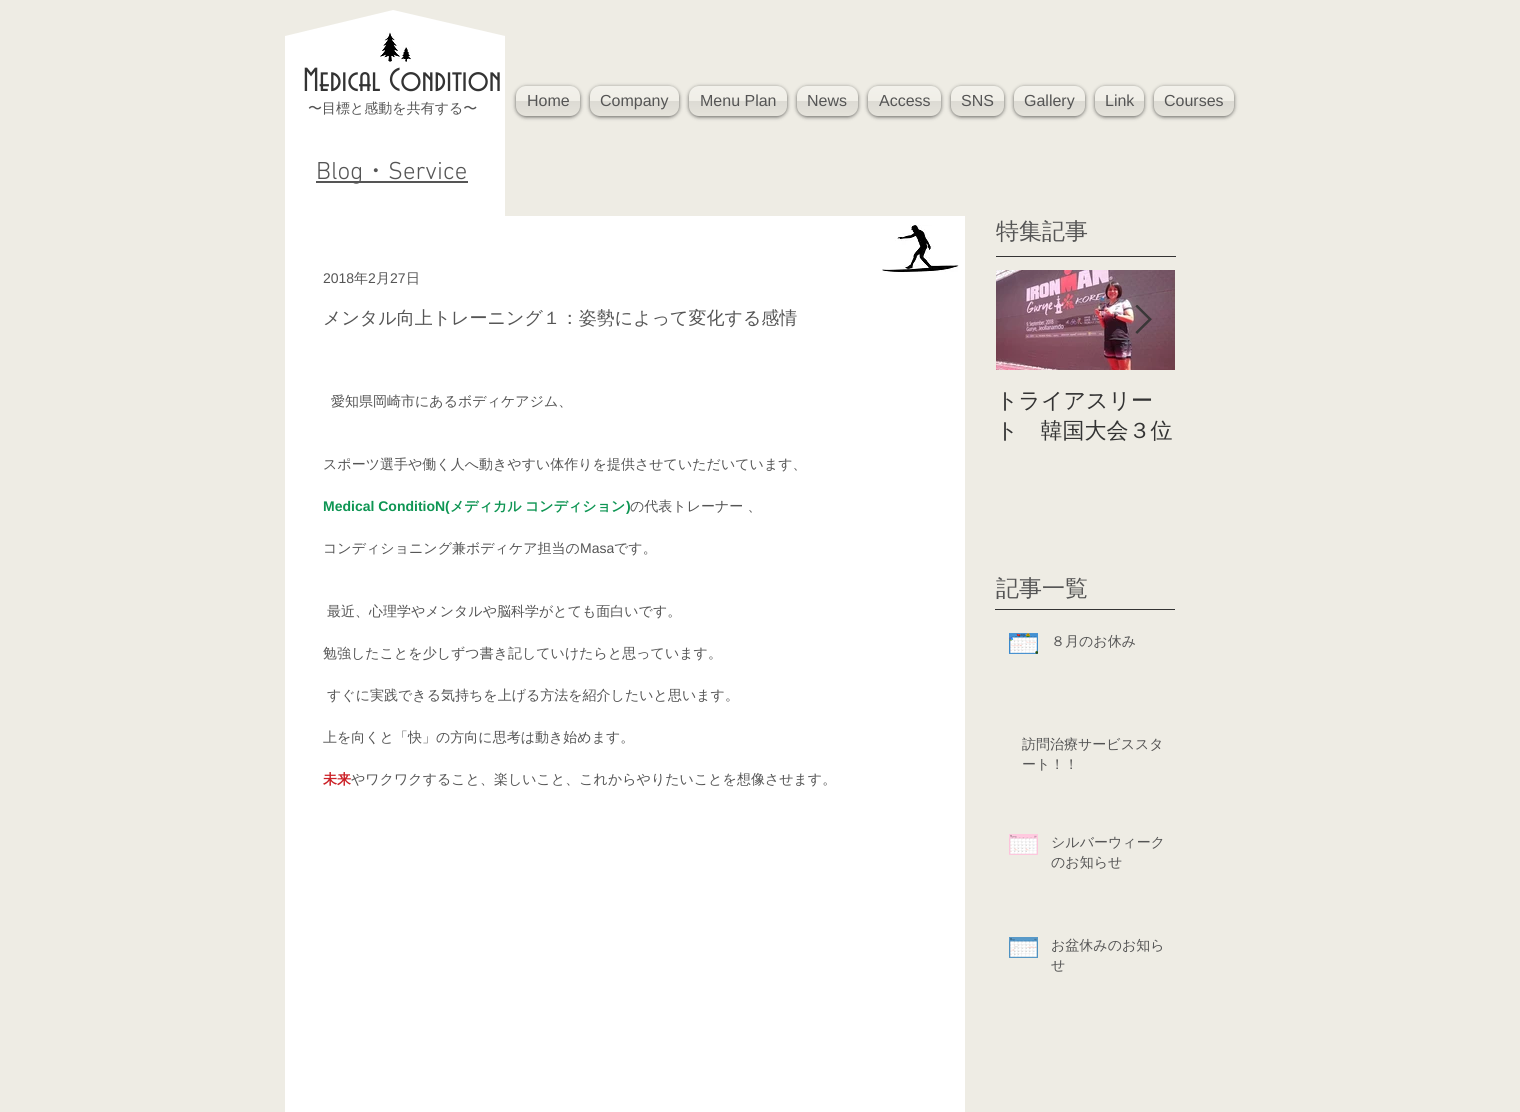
import math
import cairo


def use_color(cr, r, g, b):
  cr.set_source_rgb(r / 255, g / 255, b / 255)

def text(cr, x, y, s, family, size, color, bold=False, italic=False):
  cr.select_font_face(family, cairo.FONT_SLANT_ITALIC if italic else cairo.FONT_SLANT_NORMAL, cairo.FONT_WEIGHT_BOLD if bold else cairo.FONT_WEIGHT_NORMAL)
  cr.set_font_size(size)
  use_color(cr, *color)
  cr.move_to(x, y)
  cr.show_text(s)

def box(cr, x, y, w, h, *color):
  use_color(cr, *color)
  cr.rectangle(x, y, w, h)
  cr.fill()

def round_rect(cr, x, y, w, h, r):
  cr.new_sub_path()
  for i, (u, v) in enumerate([(x + w - r, y + h - r), (x + r, y + h - r), (x + r, y + r), (x + w - r, y + r)]):
    cr.arc(u, v, r, i * math.pi / 2, (i + 1) * math.pi / 2)
  cr.close_path()

def shadow(cr, x, y, w, h, r, blur, alpha):
  cr.push_group_with_content(cairo.CONTENT_ALPHA)
  cr.set_operator(cairo.OPERATOR_SOURCE)
  for i in range(15, -16, -2):
    e = blur * i / 6
    if min(w, h) + 2 * e > 0:
      cr.set_source_rgba(0, 0, 0, alpha * math.erfc((i - 1) / 8.5) / 2)
      round_rect(cr, x - e, y - e, w + 2 * e, h + 2 * e, max(0, min(r + e + blur * .6, min(w, h) / 2 + e)))
      cr.fill()
  cr.mask(cr.pop_group())

def picture(cr, path, x, y, w, h):
  cr.save()
  cr.set_source_surface(cairo.ImageSurface.create_from_png(path), x, y)
  cr.rectangle(x, y, w, h)
  cr.fill()
  cr.restore()

def draw(cr):
  use_color(cr, 238, 236, 228)
  cr.paint()
  use_color(cr, 255, 255, 255)
  cr.new_path()
  cr.move_to(285, 36)
  cr.line_to(393, 10)
  cr.line_to(505, 36)
  cr.line_to(505, 138)
  cr.line_to(285, 138)
  cr.close_path()
  cr.fill()
  picture(cr, "img_01.png", 380, 32, 31, 30)
  use_color(cr, 0, 0, 0)
  shadow(cr, 516, 87, 64, 30, 10, 2, 0.6)
  use_color(cr, 238, 236, 228)
  round_rect(cr, 516, 86, 64, 30, 10)
  cr.fill()
  picture(cr, "img_02.png", 516, 86, 64, 30)
  use_color(cr, 0, 0, 0)
  shadow(cr, 590, 87, 89, 30, 10, 2, 0.6)
  use_color(cr, 238, 236, 228)
  round_rect(cr, 590, 86, 89, 30, 10)
  cr.fill()
  picture(cr, "img_03.png", 590, 86, 89, 30)
  use_color(cr, 0, 0, 0)
  shadow(cr, 689, 87, 98, 30, 10, 2, 0.6)
  use_color(cr, 238, 236, 228)
  round_rect(cr, 689, 86, 98, 30, 10)
  cr.fill()
  picture(cr, "img_04.png", 689, 86, 98, 30)
  use_color(cr, 0, 0, 0)
  shadow(cr, 797, 87, 61, 30, 10, 2, 0.6)
  use_color(cr, 238, 236, 228)
  round_rect(cr, 797, 86, 61, 30, 10)
  cr.fill()
  picture(cr, "img_05.png", 797, 86, 61, 30)
  use_color(cr, 0, 0, 0)
  shadow(cr, 868, 87, 73, 30, 10, 2, 0.6)
  use_color(cr, 238, 236, 228)
  round_rect(cr, 868, 86, 73, 30, 10)
  cr.fill()
  picture(cr, "img_06.png", 868, 86, 73, 30)
  use_color(cr, 0, 0, 0)
  shadow(cr, 951, 87, 53, 30, 10, 2, 0.6)
  use_color(cr, 238, 236, 228)
  round_rect(cr, 951, 86, 53, 30, 10)
  cr.fill()
  picture(cr, "img_07.png", 951, 86, 53, 30)
  use_color(cr, 0, 0, 0)
  shadow(cr, 1014, 87, 71, 30, 10, 2, 0.6)
  use_color(cr, 238, 236, 228)
  round_rect(cr, 1014, 86, 71, 30, 10)
  cr.fill()
  picture(cr, "img_08.png", 1014, 86, 71, 30)
  use_color(cr, 0, 0, 0)
  shadow(cr, 1095, 87, 49, 30, 10, 2, 0.6)
  use_color(cr, 238, 236, 228)
  round_rect(cr, 1095, 86, 49, 30, 10)
  cr.fill()
  picture(cr, "img_09.png", 1095, 86, 49, 30)
  use_color(cr, 0, 0, 0)
  shadow(cr, 1154, 87, 80, 30, 10, 2, 0.6)
  use_color(cr, 238, 236, 228)
  round_rect(cr, 1154, 86, 80, 30, 10)
  cr.fill()
  picture(cr, "img_10.png", 1154, 86, 80, 30)
  box(cr, 285, 138, 220, 78, 255, 255, 255)
  box(cr, 316, 181, 152, 2, 85, 85, 85)
  box(cr, 285, 216, 680, 896, 255, 255, 255)
  picture(cr, "img_11.png", 882, 225, 77, 47)
  box(cr, 996, 256, 180, 1, 51, 51, 51)
  picture(cr, "img_13.png", 996, 270, 179, 100)
  picture(cr, "img_12.png", 1135, 305, 17, 29)
  box(cr, 995, 609, 180, 1, 51, 51, 51)
  picture(cr, "img_14.png", 1009, 633, 29, 21)
  picture(cr, "img_15.png", 1009, 834, 29, 21)
  picture(cr, "img_16.png", 1009, 937, 29, 21)
  text(cr, 303, 91, "Medical Condition", "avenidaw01", 35, (51, 51, 51))
  text(cr, 308, 113, "〜目標と感動を共有する〜", "WenQuanYi Zen Hei Medium", 14, (85, 85, 85))
  text(cr, 527, 106, "Home", "Liberation Sans", 16, (85, 85, 85))
  text(cr, 600, 106, "Company", "Liberation Sans", 16, (85, 85, 85))
  text(cr, 700, 106, "Menu Plan", "Liberation Sans", 16, (85, 85, 85))
  text(cr, 807, 106, "News", "Liberation Sans", 16, (85, 85, 85))
  text(cr, 879, 106, "Access", "Liberation Sans", 16, (85, 85, 85))
  text(cr, 961, 106, "SNS", "Liberation Sans", 16, (85, 85, 85))
  text(cr, 1024, 106, "Gallery", "Liberation Sans", 16, (85, 85, 85))
  text(cr, 1105, 106, "Link", "Liberation Sans", 16, (85, 85, 85))
  text(cr, 1164, 106, "Courses", "Liberation Sans", 16, (85, 85, 85))
  text(cr, 316, 179, "Blog", "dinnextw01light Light", 25, (85, 85, 85))
  text(cr, 363, 179, "・", "WenQuanYi Zen Hei Medium", 25, (85, 85, 85))
  text(cr, 388, 179, "Service", "dinnextw01light Light", 25, (85, 85, 85))
  text(cr, 996, 239, "特集記事", "WenQuanYi Zen Hei Medium", 23, (85, 85, 85))
  text(cr, 323, 283, "2018", "Liberation Sans", 14, (85, 85, 85))
  text(cr, 354, 283, "年", "WenQuanYi Zen Hei Medium", 14, (85, 85, 85))
  text(cr, 368, 283, "2", "Liberation Sans", 14, (85, 85, 85))
  text(cr, 376, 283, "月", "WenQuanYi Zen Hei Medium", 14, (85, 85, 85))
  text(cr, 390, 283, "27", "Liberation Sans", 14, (85, 85, 85))
  text(cr, 406, 283, "日", "WenQuanYi Zen Hei Medium", 14, (85, 85, 85))
  text(cr, 323, 324, "メンタル向上トレーニング１：姿勢によって変化する感情", "WenQuanYi Zen Hei Medium", 18, (85, 85, 85))
  text(cr, 331, 406, "愛知県岡崎市にあるボディケアジム、", "WenQuanYi Zen Hei Medium", 14, (85, 85, 85))
  text(cr, 323, 469, "スポーツ選手や働く人へ動きやすい体作りを提供させていただいています、", "WenQuanYi Zen Hei Medium", 14, (85, 85, 85))
  text(cr, 323, 511, "Medical ConditioN(", "Liberation Sans", 14, (14, 149, 83), bold=True)
  text(cr, 450, 511, "メディカル", "WenQuanYi Zen Hei", 14, (14, 149, 83), bold=True)
  text(cr, 525, 511, "コンディション", "WenQuanYi Zen Hei", 14, (14, 149, 83), bold=True)
  text(cr, 626, 511, ")", "Liberation Sans", 14, (14, 149, 83), bold=True)
  text(cr, 630, 511, "の代表トレーナー 、", "WenQuanYi Zen Hei Medium", 14, (85, 85, 85))
  text(cr, 323, 553, "コンディショニング兼ボディケア担当の", "WenQuanYi Zen Hei Medium", 14, (85, 85, 85))
  text(cr, 580, 553, "Masa", "Liberation Sans", 14, (85, 85, 85))
  text(cr, 614, 553, "です。", "WenQuanYi Zen Hei Medium", 14, (85, 85, 85))
  text(cr, 327, 616, "最近、心理学やメンタルや脳科学がとても面白いです。", "WenQuanYi Zen Hei Medium", 14, (85, 85, 85))
  text(cr, 323, 658, "勉強したことを少しずつ書き記していけたらと思っています。", "WenQuanYi Zen Hei Medium", 14, (85, 85, 85))
  text(cr, 327, 700, "すぐに実践できる気持ちを上げる方法を紹介したいと思います。", "WenQuanYi Zen Hei Medium", 14, (85, 85, 85))
  text(cr, 323, 742, "上を向くと「快」の方向に思考は動き始めます。", "WenQuanYi Zen Hei Medium", 14, (85, 85, 85))
  text(cr, 323, 784, "未来", "WenQuanYi Zen Hei", 14, (203, 32, 38), bold=True)
  text(cr, 351, 784, "やワクワクすること、楽しいこと、これからやりたいことを想像させます。", "WenQuanYi Zen Hei Medium", 14, (85, 85, 85))
  text(cr, 996, 408, "トライアスリー", "WenQuanYi Zen Hei Medium", 22, (51, 51, 51))
  text(cr, 996, 438, "ト　韓国大会３位", "WenQuanYi Zen Hei Medium", 22, (51, 51, 51))
  text(cr, 996, 596, "記事一覧", "WenQuanYi Zen Hei Medium", 23, (85, 85, 85))
  text(cr, 1051, 646, "８月のお休み", "WenQuanYi Zen Hei Medium", 14, (85, 85, 85))
  text(cr, 1022, 749, "訪問治療サービススタ", "WenQuanYi Zen Hei Medium", 14, (85, 85, 85))
  text(cr, 1022, 769, "ート！！", "WenQuanYi Zen Hei Medium", 14, (85, 85, 85))
  text(cr, 1051, 847, "シルバーウィーク", "WenQuanYi Zen Hei Medium", 14, (85, 85, 85))
  text(cr, 1051, 867, "のお知らせ", "WenQuanYi Zen Hei Medium", 14, (85, 85, 85))
  text(cr, 1051, 950, "お盆休みのお知ら", "WenQuanYi Zen Hei Medium", 14, (85, 85, 85))
  text(cr, 1051, 970, "せ", "WenQuanYi Zen Hei Medium", 14, (85, 85, 85))


surface = cairo.ImageSurface(cairo.FORMAT_RGB24, 1520, 1112)
cr = cairo.Context(surface)
options = cairo.FontOptions()
options.set_hint_metrics(cairo.HINT_METRICS_OFF)
options.set_hint_style(cairo.HINT_STYLE_NONE)
cr.set_font_options(options)
cr.set_miter_limit(4)
draw(cr)
surface.write_to_png("out.png")
